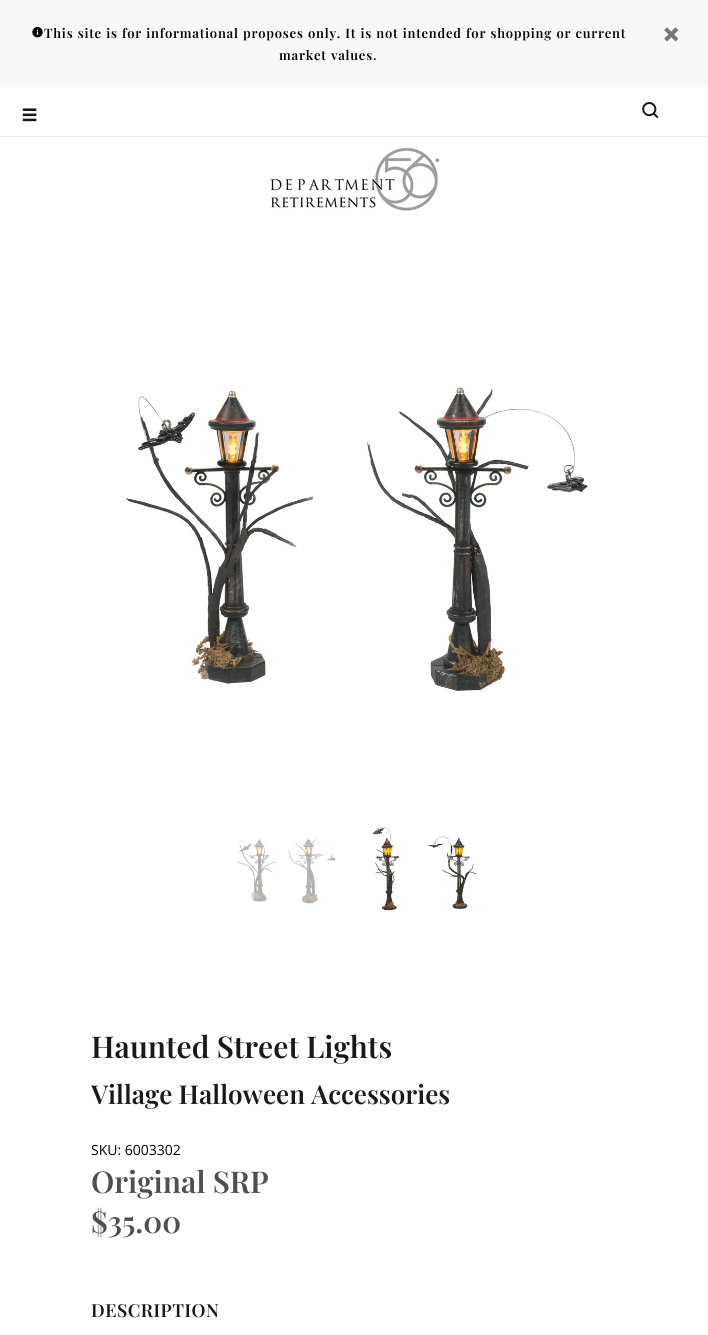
import math
import cairo


def use_color(cr, r, g, b):
  cr.set_source_rgb(r / 255, g / 255, b / 255)

def text(cr, x, y, s, family, size, color, bold=False, italic=False):
  cr.select_font_face(family, cairo.FONT_SLANT_ITALIC if italic else cairo.FONT_SLANT_NORMAL, cairo.FONT_WEIGHT_BOLD if bold else cairo.FONT_WEIGHT_NORMAL)
  cr.set_font_size(size)
  use_color(cr, *color)
  cr.move_to(x, y)
  cr.show_text(s)

def spaced_text(cr, x, y, s, letter, word):
  cr.move_to(x, y)
  for ch in s:
    cr.show_text(ch)
    cr.rel_move_to(letter + word * (ch == ' '), 0)

def box(cr, x, y, w, h, *color):
  use_color(cr, *color)
  cr.rectangle(x, y, w, h)
  cr.fill()

def picture(cr, path, x, y, w, h):
  cr.save()
  cr.set_source_surface(cairo.ImageSurface.create_from_png(path), x, y)
  cr.rectangle(x, y, w, h)
  cr.fill()
  cr.restore()

def draw(cr):
  use_color(cr, 255, 255, 255)
  cr.paint()
  box(cr, 0, 0, 708, 86, 247, 248, 250)
  picture(cr, "img_01.png", 32, 27, 11, 11)
  picture(cr, "img_02.png", 664, 27, 15, 15)
  picture(cr, "img_03.png", 22, 108, 15, 14)
  picture(cr, "img_04.png", 642, 102, 17, 16)
  box(cr, 0, 136, 708, 1, 237, 237, 237)
  picture(cr, "img_05.png", 270, 147, 170, 64)
  picture(cr, "img_06.png", 126, 385, 462, 307)
  picture(cr, "img_07.png", 236, 837, 100, 67)
  picture(cr, "img_08.png", 373, 826, 104, 85)
  cr.select_font_face("Playfair Display SemiBold")
  cr.set_font_size(13)
  use_color(cr, 0, 0, 0)
  spaced_text(cr, 44, 38, "This site is for informational proposes only. It is not intended for shopping or current", 0.78, 0.4)
  spaced_text(cr, 279, 60, "market values.", 0.78, 0.4)
  text(cr, 91, 1058, "Haunted Street Lights", "Playfair Display SemiBold", 30, (25, 25, 25))
  text(cr, 91, 1104, "Village Halloween Accessories", "Playfair Display SemiBold", 26, (25, 25, 25))
  text(cr, 91, 1155, "SKU: 6003302", "Open Sans", 14, (0, 0, 0))
  text(cr, 91, 1193, "Original SRP", "Playfair Display SemiBold", 30, (79, 79, 79))
  text(cr, 91, 1233, "$35.00", "Playfair Display SemiBold", 30, (79, 79, 79))
  cr.set_font_size(18)
  use_color(cr, 25, 25, 25)
  spaced_text(cr, 91, 1317, "DESCRIPTION", 0.5, 0)


surface = cairo.ImageSurface(cairo.FORMAT_RGB24, 708, 1335)
cr = cairo.Context(surface)
options = cairo.FontOptions()
options.set_hint_metrics(cairo.HINT_METRICS_OFF)
options.set_hint_style(cairo.HINT_STYLE_NONE)
cr.set_font_options(options)
cr.set_miter_limit(4)
draw(cr)
surface.write_to_png("out.png")
